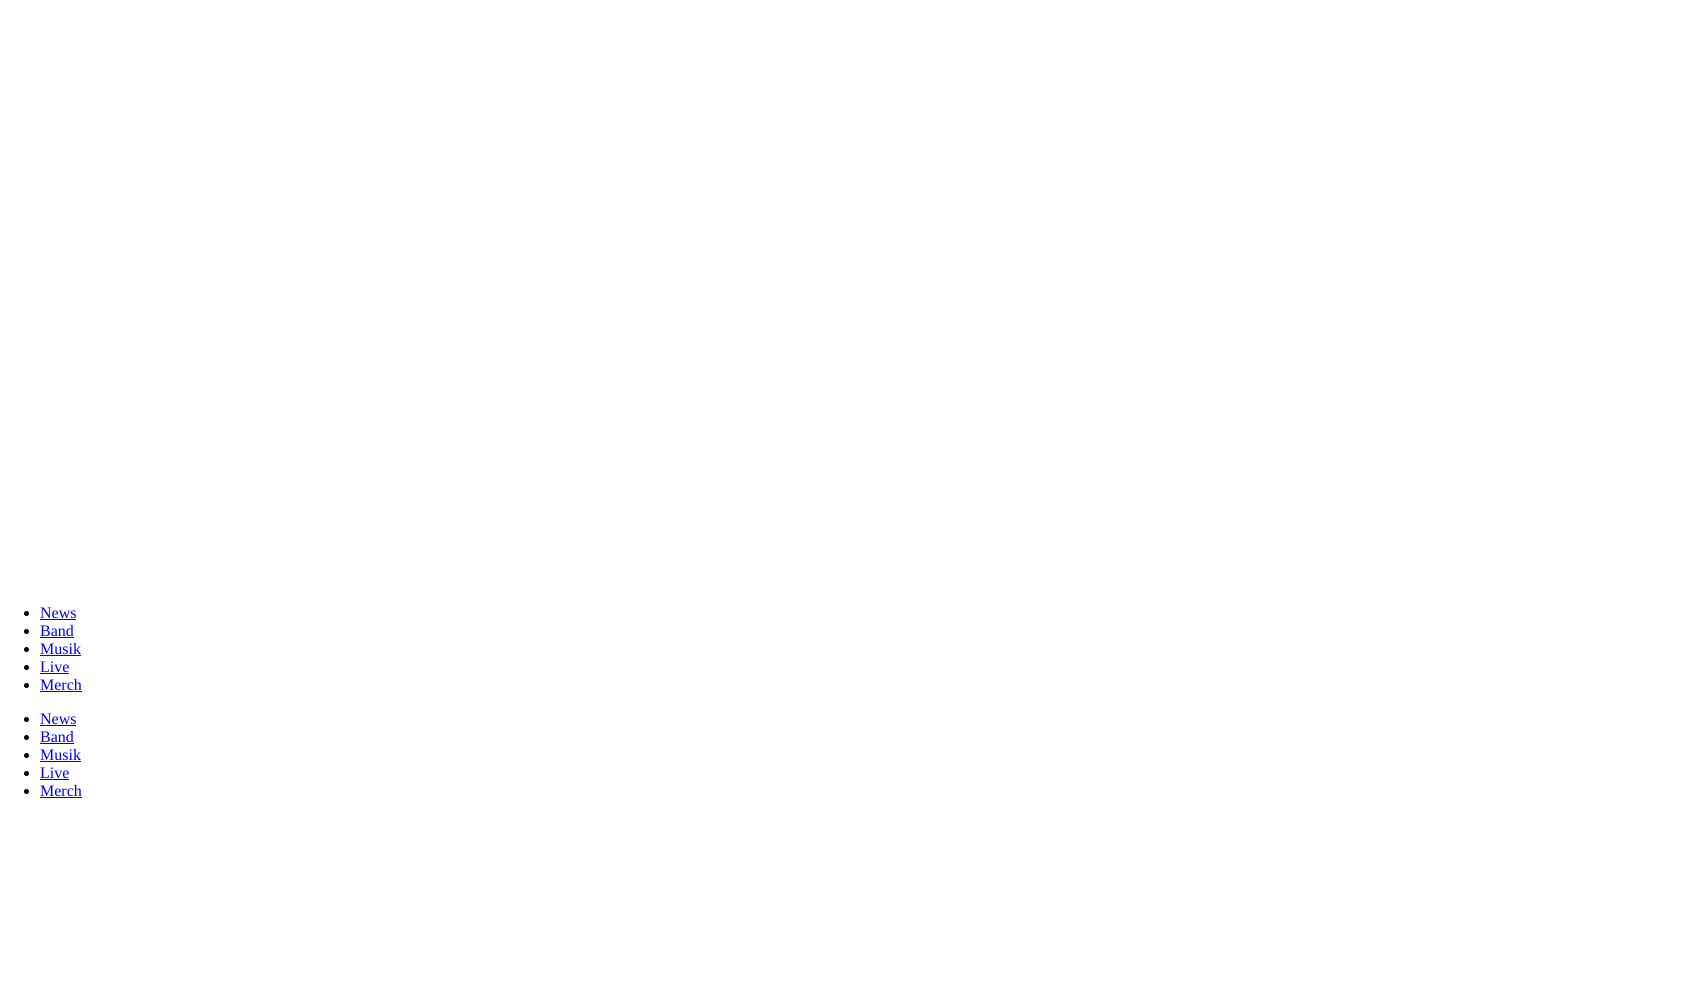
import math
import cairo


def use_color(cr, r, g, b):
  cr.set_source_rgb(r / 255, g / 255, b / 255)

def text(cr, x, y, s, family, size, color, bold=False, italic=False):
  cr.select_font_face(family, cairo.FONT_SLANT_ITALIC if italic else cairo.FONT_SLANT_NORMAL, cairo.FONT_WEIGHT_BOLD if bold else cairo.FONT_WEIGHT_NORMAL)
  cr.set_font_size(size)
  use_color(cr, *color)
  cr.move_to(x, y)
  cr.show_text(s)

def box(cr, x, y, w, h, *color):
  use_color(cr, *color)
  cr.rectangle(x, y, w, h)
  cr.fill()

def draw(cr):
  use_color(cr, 255, 255, 255)
  cr.paint()
  use_color(cr, 0, 0, 0)
  cr.arc(26.5, 613.5, 2.5, 0, 2 * math.pi)
  cr.fill()
  box(cr, 40, 619, 36, 1, 0, 0, 238)
  use_color(cr, 0, 0, 0)
  cr.arc(26.5, 631.5, 2.5, 0, 2 * math.pi)
  cr.fill()
  box(cr, 40, 637, 34, 1, 0, 0, 238)
  use_color(cr, 0, 0, 0)
  cr.arc(26.5, 649.5, 2.5, 0, 2 * math.pi)
  cr.fill()
  box(cr, 40, 655, 41, 1, 0, 0, 238)
  use_color(cr, 0, 0, 0)
  cr.arc(26.5, 667.5, 2.5, 0, 2 * math.pi)
  cr.fill()
  box(cr, 40, 673, 29, 1, 0, 0, 238)
  use_color(cr, 0, 0, 0)
  cr.arc(26.5, 685.5, 2.5, 0, 2 * math.pi)
  cr.fill()
  box(cr, 40, 691, 42, 1, 0, 0, 238)
  use_color(cr, 0, 0, 0)
  cr.arc(26.5, 719.5, 2.5, 0, 2 * math.pi)
  cr.fill()
  box(cr, 40, 725, 36, 1, 0, 0, 238)
  use_color(cr, 0, 0, 0)
  cr.arc(26.5, 737.5, 2.5, 0, 2 * math.pi)
  cr.fill()
  box(cr, 40, 743, 34, 1, 0, 0, 238)
  use_color(cr, 0, 0, 0)
  cr.arc(26.5, 755.5, 2.5, 0, 2 * math.pi)
  cr.fill()
  box(cr, 40, 761, 41, 1, 0, 0, 238)
  use_color(cr, 0, 0, 0)
  cr.arc(26.5, 773.5, 2.5, 0, 2 * math.pi)
  cr.fill()
  box(cr, 40, 779, 29, 1, 0, 0, 238)
  use_color(cr, 0, 0, 0)
  cr.arc(26.5, 791.5, 2.5, 0, 2 * math.pi)
  cr.fill()
  box(cr, 40, 797, 42, 1, 0, 0, 238)
  text(cr, 40, 618, "News", "Liberation Serif", 16, (0, 0, 238))
  text(cr, 40, 636, "Band", "Liberation Serif", 16, (0, 0, 238))
  text(cr, 40, 654, "Musik", "Liberation Serif", 16, (0, 0, 238))
  text(cr, 40, 672, "Live", "Liberation Serif", 16, (0, 0, 238))
  text(cr, 40, 690, "Merch", "Liberation Serif", 16, (0, 0, 238))
  text(cr, 40, 724, "News", "Liberation Serif", 16, (0, 0, 238))
  text(cr, 40, 742, "Band", "Liberation Serif", 16, (0, 0, 238))
  text(cr, 40, 760, "Musik", "Liberation Serif", 16, (0, 0, 238))
  text(cr, 40, 778, "Live", "Liberation Serif", 16, (0, 0, 238))
  text(cr, 40, 796, "Merch", "Liberation Serif", 16, (0, 0, 238))


surface = cairo.ImageSurface(cairo.FORMAT_RGB24, 1703, 997)
cr = cairo.Context(surface)
options = cairo.FontOptions()
options.set_hint_metrics(cairo.HINT_METRICS_OFF)
options.set_hint_style(cairo.HINT_STYLE_NONE)
cr.set_font_options(options)
cr.set_miter_limit(4)
draw(cr)
surface.write_to_png("out.png")
